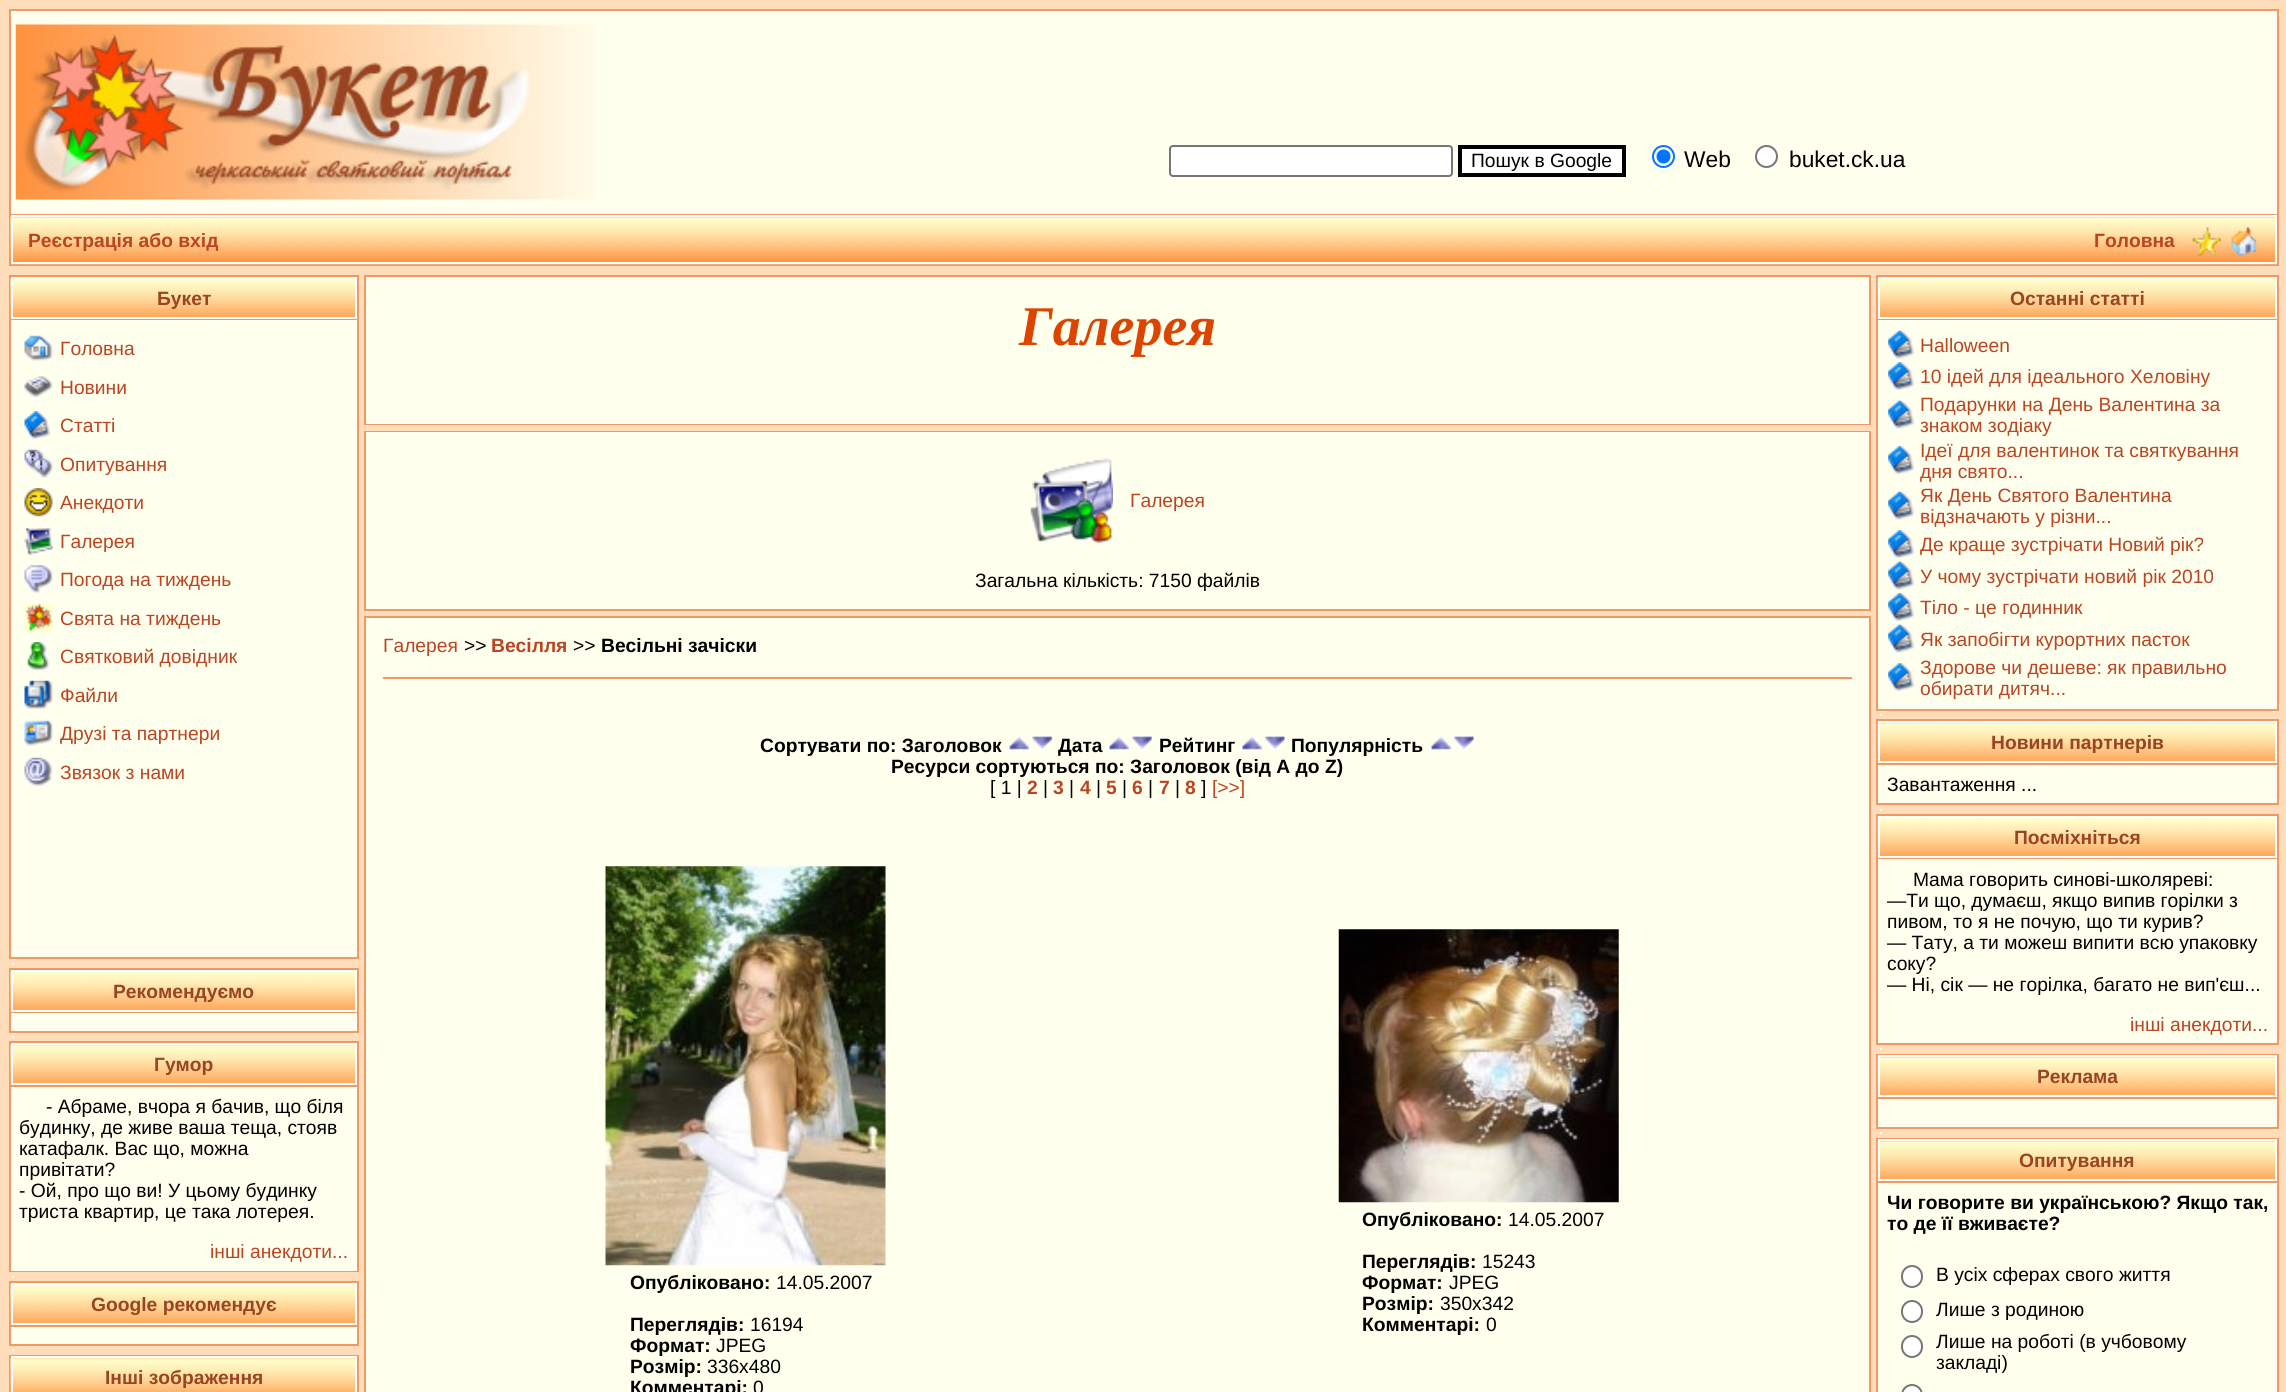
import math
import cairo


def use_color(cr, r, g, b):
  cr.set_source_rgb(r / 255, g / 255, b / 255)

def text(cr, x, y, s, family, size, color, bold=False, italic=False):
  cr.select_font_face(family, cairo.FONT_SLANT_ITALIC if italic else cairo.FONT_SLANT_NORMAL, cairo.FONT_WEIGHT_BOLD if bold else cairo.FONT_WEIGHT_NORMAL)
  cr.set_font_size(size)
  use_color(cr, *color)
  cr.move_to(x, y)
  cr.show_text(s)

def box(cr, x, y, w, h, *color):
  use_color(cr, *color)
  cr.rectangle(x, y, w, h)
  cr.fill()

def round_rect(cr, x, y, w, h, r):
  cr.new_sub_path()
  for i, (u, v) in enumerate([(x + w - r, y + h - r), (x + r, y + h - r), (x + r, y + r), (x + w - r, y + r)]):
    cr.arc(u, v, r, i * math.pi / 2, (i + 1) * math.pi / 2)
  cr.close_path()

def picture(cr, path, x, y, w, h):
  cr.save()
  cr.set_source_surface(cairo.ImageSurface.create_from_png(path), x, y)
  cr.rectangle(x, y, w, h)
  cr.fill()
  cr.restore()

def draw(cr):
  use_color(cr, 255, 221, 187)
  cr.paint()
  box(cr, 9, 9, 2270, 257, 238, 153, 102)
  box(cr, 11, 11, 2266, 203, 255, 255, 238)
  picture(cr, "img_01.png", 15, 24, 582, 176)
  use_color(cr, 255, 255, 255)
  round_rect(cr, 1170, 146, 282, 30, 3)
  cr.fill_preserve()
  use_color(cr, 118, 118, 118)
  cr.stroke()
  use_color(cr, 255, 255, 255)
  cr.rectangle(1460, 147, 164, 28)
  cr.fill_preserve()
  use_color(cr, 0, 0, 0)
  cr.set_line_width(4)
  cr.stroke()
  use_color(cr, 255, 255, 255)
  cr.arc(1663.5, 156.5, 10.5, 0, 2 * math.pi)
  cr.fill_preserve()
  use_color(cr, 0, 117, 255)
  cr.set_line_width(2)
  cr.stroke()
  cr.arc(1663.5, 156.5, 7, 0, 2 * math.pi)
  cr.fill()
  use_color(cr, 255, 255, 255)
  cr.arc(1766.5, 156.5, 10.5, 0, 2 * math.pi)
  cr.fill_preserve()
  use_color(cr, 118, 118, 118)
  cr.stroke()
  picture(cr, "img_02.png", 10, 215, 2267, 50)
  cr.rectangle(12, 216, 2264, 47)
  use_color(cr, 255, 255, 255)
  cr.stroke()
  picture(cr, "img_03.png", 2192, 227, 29, 29)
  picture(cr, "img_04.png", 2230, 227, 27, 29)
  box(cr, 9, 275, 350, 684, 238, 153, 102)
  picture(cr, "img_05.png", 10, 276, 347, 43)
  cr.rectangle(12, 278, 344, 40)
  use_color(cr, 255, 255, 255)
  cr.stroke()
  box(cr, 11, 320, 346, 637, 255, 255, 238)
  picture(cr, "img_06.png", 24, 335, 29, 26)
  picture(cr, "img_07.png", 24, 376, 29, 22)
  picture(cr, "img_08.png", 24, 411, 27, 29)
  picture(cr, "img_09.png", 24, 449, 29, 29)
  picture(cr, "img_10.png", 24, 488, 29, 29)
  picture(cr, "img_11.png", 24, 527, 29, 28)
  picture(cr, "img_12.png", 24, 565, 29, 29)
  picture(cr, "img_13.png", 24, 603, 29, 29)
  picture(cr, "img_14.png", 27, 642, 23, 29)
  picture(cr, "img_15.png", 24, 680, 29, 29)
  picture(cr, "img_16.png", 24, 720, 29, 26)
  picture(cr, "img_17.png", 24, 757, 29, 29)
  box(cr, 12, 963, 2, 2, 255, 255, 238)
  box(cr, 9, 968, 350, 65, 238, 153, 102)
  picture(cr, "img_05.png", 10, 969, 347, 43)
  cr.rectangle(12, 971, 344, 40)
  use_color(cr, 255, 255, 255)
  cr.stroke()
  box(cr, 11, 1013, 346, 18, 255, 255, 238)
  box(cr, 12, 1036, 2, 2, 255, 255, 238)
  box(cr, 9, 1041, 350, 231, 238, 153, 102)
  picture(cr, "img_18.png", 10, 1043, 345, 42)
  cr.rectangle(12, 1044, 344, 40)
  use_color(cr, 255, 255, 255)
  cr.stroke()
  box(cr, 11, 1087, 346, 184, 255, 255, 238)
  box(cr, 12, 1276, 2, 2, 255, 255, 238)
  box(cr, 9, 1281, 350, 65, 238, 153, 102)
  picture(cr, "img_19.png", 10, 1282, 347, 43)
  cr.rectangle(12, 1284, 344, 40)
  use_color(cr, 255, 255, 255)
  cr.stroke()
  box(cr, 11, 1327, 346, 17, 255, 255, 238)
  box(cr, 12, 1349, 2, 2, 255, 255, 238)
  box(cr, 9, 1355, 350, 37, 238, 153, 102)
  picture(cr, "img_20.png", 10, 1356, 345, 36)
  cr.rectangle(12, 1357, 344, 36)
  use_color(cr, 255, 255, 255)
  cr.stroke()
  cr.rectangle(365, 276, 1505, 148)
  use_color(cr, 238, 153, 102)
  cr.stroke()
  box(cr, 366, 277, 1503, 147, 255, 255, 238)
  cr.rectangle(365, 432, 1505, 178)
  use_color(cr, 238, 153, 102)
  cr.stroke()
  box(cr, 366, 432, 1503, 177, 255, 255, 238)
  picture(cr, "img_21.png", 1030, 458, 83, 85)
  cr.rectangle(365, 617, 1505, 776)
  use_color(cr, 238, 153, 102)
  cr.stroke()
  box(cr, 366, 618, 1503, 774, 255, 255, 238)
  box(cr, 383, 677, 1469, 2, 238, 153, 102)
  picture(cr, "img_22.png", 1008, 735, 23, 16)
  picture(cr, "img_23.png", 1030, 735, 24, 16)
  picture(cr, "img_24.png", 1107, 735, 24, 16)
  picture(cr, "img_25.png", 1130, 735, 24, 16)
  picture(cr, "img_26.png", 1240, 735, 24, 16)
  picture(cr, "img_27.png", 1263, 735, 24, 16)
  picture(cr, "img_24.png", 1429, 735, 24, 16)
  picture(cr, "img_25.png", 1452, 735, 24, 16)
  picture(cr, "img_28.png", 605, 866, 281, 400)
  picture(cr, "img_29.png", 1338, 929, 281, 274)
  box(cr, 1876, 275, 403, 436, 238, 153, 102)
  picture(cr, "img_30.png", 1877, 276, 400, 43)
  cr.rectangle(1879, 278, 397, 40)
  use_color(cr, 255, 255, 255)
  cr.stroke()
  box(cr, 1878, 320, 399, 389, 255, 255, 238)
  picture(cr, "img_31.png", 1888, 330, 27, 29)
  picture(cr, "img_32.png", 1888, 362, 27, 29)
  picture(cr, "img_31.png", 1888, 400, 27, 29)
  picture(cr, "img_32.png", 1888, 446, 27, 29)
  picture(cr, "img_31.png", 1888, 491, 27, 29)
  picture(cr, "img_32.png", 1888, 530, 27, 29)
  picture(cr, "img_31.png", 1888, 561, 27, 29)
  picture(cr, "img_32.png", 1888, 593, 27, 29)
  picture(cr, "img_31.png", 1888, 624, 27, 29)
  picture(cr, "img_32.png", 1888, 663, 27, 29)
  box(cr, 1880, 714, 2, 2, 255, 255, 238)
  box(cr, 1876, 719, 403, 86, 238, 153, 102)
  picture(cr, "img_33.png", 1877, 721, 398, 42)
  cr.rectangle(1879, 722, 397, 40)
  use_color(cr, 255, 255, 255)
  cr.stroke()
  box(cr, 1878, 765, 399, 38, 255, 255, 238)
  box(cr, 1880, 809, 2, 2, 255, 255, 238)
  box(cr, 1876, 814, 403, 231, 238, 153, 102)
  picture(cr, "img_30.png", 1877, 815, 400, 43)
  cr.rectangle(1879, 817, 397, 40)
  use_color(cr, 255, 255, 255)
  cr.stroke()
  box(cr, 1878, 859, 399, 184, 255, 255, 238)
  box(cr, 1880, 1048, 2, 2, 255, 255, 238)
  box(cr, 1876, 1054, 403, 75, 238, 153, 102)
  picture(cr, "img_34.png", 1877, 1055, 400, 43)
  cr.rectangle(1879, 1056, 397, 40)
  use_color(cr, 255, 255, 255)
  cr.stroke()
  box(cr, 1878, 1099, 399, 28, 255, 255, 238)
  box(cr, 1880, 1132, 2, 2, 255, 255, 238)
  box(cr, 1876, 1138, 403, 254, 238, 153, 102)
  picture(cr, "img_34.png", 1877, 1139, 400, 43)
  cr.rectangle(1879, 1140, 397, 40)
  use_color(cr, 255, 255, 255)
  cr.stroke()
  box(cr, 1878, 1183, 399, 209, 255, 255, 238)
  use_color(cr, 255, 255, 255)
  round_rect(cr, 1902, 1266, 20, 21, 10)
  cr.fill_preserve()
  use_color(cr, 118, 118, 118)
  cr.stroke()
  use_color(cr, 255, 255, 255)
  round_rect(cr, 1902, 1301, 20, 21, 10)
  cr.fill_preserve()
  use_color(cr, 118, 118, 118)
  cr.stroke()
  use_color(cr, 255, 255, 255)
  round_rect(cr, 1902, 1336, 20, 21, 10)
  cr.fill_preserve()
  use_color(cr, 118, 118, 118)
  cr.stroke()
  use_color(cr, 255, 255, 255)
  round_rect(cr, 1902, 1385, 20, 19, 10)
  cr.fill_preserve()
  use_color(cr, 118, 118, 118)
  cr.stroke()
  text(cr, 1471, 167, "Пошук в Google", "Liberation Sans", 19.25, (0, 0, 0))
  text(cr, 1684, 167, "Web", "Liberation Sans", 22.75, (0, 0, 0))
  text(cr, 1789, 167, "buket.ck.ua", "Liberation Sans", 22.75, (0, 0, 0))
  text(cr, 28, 247, "Реєстрація або вхід", "Liberation Sans", 19.25, (187, 68, 34), bold=True)
  text(cr, 2094, 247, "Головна", "Liberation Sans", 19.25, (187, 68, 34), bold=True)
  text(cr, 157, 305, "Букет", "Liberation Sans", 19.25, (153, 68, 34), bold=True)
  text(cr, 60, 355, "Головна", "Liberation Sans", 19.25, (187, 68, 34))
  text(cr, 60, 394, "Новини", "Liberation Sans", 19.25, (187, 68, 34))
  text(cr, 60, 432, "Статті", "Liberation Sans", 19.25, (187, 68, 34))
  text(cr, 60, 471, "Опитування", "Liberation Sans", 19.25, (187, 68, 34))
  text(cr, 60, 509, "Анекдоти", "Liberation Sans", 19.25, (187, 68, 34))
  text(cr, 60, 548, "Галерея", "Liberation Sans", 19.25, (187, 68, 34))
  text(cr, 60, 586, "Погода на тиждень", "Liberation Sans", 19.25, (187, 68, 34))
  text(cr, 60, 625, "Свята на тиждень", "Liberation Sans", 19.25, (187, 68, 34))
  text(cr, 60, 663, "Святковий довідник", "Liberation Sans", 19.25, (187, 68, 34))
  text(cr, 60, 702, "Файли", "Liberation Sans", 19.25, (187, 68, 34))
  text(cr, 60, 740, "Друзі та партнери", "Liberation Sans", 19.25, (187, 68, 34))
  text(cr, 60, 779, "Звязок з нами", "Liberation Sans", 19.25, (187, 68, 34))
  text(cr, 113, 998, "Рекомендуємо", "Liberation Sans", 19.25, (153, 68, 34), bold=True)
  text(cr, 154, 1071, "Гумор", "Liberation Sans", 19.25, (153, 68, 34), bold=True)
  text(cr, 46, 1113, "- Абраме, вчора я бачив, що біля", "Liberation Sans", 19.25, (0, 0, 0))
  text(cr, 19, 1134, "будинку, де живе ваша теща, стояв", "Liberation Sans", 19.25, (0, 0, 0))
  text(cr, 19, 1155, "катафалк. Вас що, можна", "Liberation Sans", 19.25, (0, 0, 0))
  text(cr, 19, 1176, "привітати?", "Liberation Sans", 19.25, (0, 0, 0))
  text(cr, 19, 1197, "- Ой, про що ви! У цьому будинку", "Liberation Sans", 19.25, (0, 0, 0))
  text(cr, 19, 1218, "триста квартир, це така лотерея.", "Liberation Sans", 19.25, (0, 0, 0))
  text(cr, 210, 1258, "інші анекдоти...", "Liberation Sans", 19.25, (187, 68, 34))
  text(cr, 91, 1311, "Google рекомендує", "Liberation Sans", 19.25, (153, 68, 34), bold=True)
  text(cr, 105, 1384, "Інші зображення", "Liberation Sans", 19.25, (153, 68, 34), bold=True)
  text(cr, 1019, 345, "Галерея", "Liberation Serif", 56, (221, 68, 0), bold=True, italic=True)
  text(cr, 1130, 507, "Галерея", "Liberation Sans", 19.25, (187, 68, 34))
  text(cr, 975, 587, "Загальна кількість: 7150 файлів", "Liberation Sans", 19.25, (0, 0, 0))
  text(cr, 383, 652, "Галерея", "Liberation Sans", 19.25, (187, 68, 34))
  text(cr, 464, 652, ">>", "Liberation Sans", 19.25, (0, 0, 0))
  text(cr, 491, 652, "Весілля", "Liberation Sans", 19.25, (187, 68, 34), bold=True)
  text(cr, 573, 652, ">>", "Liberation Sans", 19.25, (0, 0, 0))
  text(cr, 601, 652, "Весільні зачіски", "Liberation Sans", 19.25, (0, 0, 0), bold=True)
  text(cr, 760, 752, "Сортувати по: Заголовок", "Liberation Sans", 19.25, (0, 0, 0), bold=True)
  text(cr, 1058, 752, "Дата", "Liberation Sans", 19.25, (0, 0, 0), bold=True)
  text(cr, 1159, 752, "Рейтинг", "Liberation Sans", 19.25, (0, 0, 0), bold=True)
  text(cr, 1291, 752, "Популярність", "Liberation Sans", 19.25, (0, 0, 0), bold=True)
  text(cr, 891, 773, "Ресурси сортуються по: Заголовок (від A до Z)", "Liberation Sans", 19.25, (0, 0, 0), bold=True)
  text(cr, 990, 794, "[ 1 |", "Liberation Sans", 19.25, (0, 0, 0))
  text(cr, 1027, 794, "2", "Liberation Sans", 19.25, (187, 68, 34), bold=True)
  text(cr, 1043, 794, "|", "Liberation Sans", 19.25, (0, 0, 0))
  text(cr, 1053, 794, "3", "Liberation Sans", 19.25, (187, 68, 34), bold=True)
  text(cr, 1069, 794, "|", "Liberation Sans", 19.25, (0, 0, 0))
  text(cr, 1080, 794, "4", "Liberation Sans", 19.25, (187, 68, 34), bold=True)
  text(cr, 1096, 794, "|", "Liberation Sans", 19.25, (0, 0, 0))
  text(cr, 1106, 794, "5", "Liberation Sans", 19.25, (187, 68, 34), bold=True)
  text(cr, 1122, 794, "|", "Liberation Sans", 19.25, (0, 0, 0))
  text(cr, 1132, 794, "6", "Liberation Sans", 19.25, (187, 68, 34), bold=True)
  text(cr, 1148, 794, "|", "Liberation Sans", 19.25, (0, 0, 0))
  text(cr, 1159, 794, "7", "Liberation Sans", 19.25, (187, 68, 34), bold=True)
  text(cr, 1175, 794, "|", "Liberation Sans", 19.25, (0, 0, 0))
  text(cr, 1185, 794, "8", "Liberation Sans", 19.25, (187, 68, 34), bold=True)
  text(cr, 1201, 794, "]", "Liberation Sans", 19.25, (0, 0, 0))
  text(cr, 1212, 794, "[>>]", "Liberation Sans", 19.25, (187, 68, 34))
  text(cr, 630, 1289, "Опубліковано:", "Liberation Sans", 19.25, (0, 0, 0), bold=True)
  text(cr, 776, 1289, "14.05.2007", "Liberation Sans", 19.25, (0, 0, 0))
  text(cr, 630, 1331, "Переглядів:", "Liberation Sans", 19.25, (0, 0, 0), bold=True)
  text(cr, 750, 1331, "16194", "Liberation Sans", 19.25, (0, 0, 0))
  text(cr, 630, 1352, "Формат:", "Liberation Sans", 19.25, (0, 0, 0), bold=True)
  text(cr, 716, 1352, "JPEG", "Liberation Sans", 19.25, (0, 0, 0))
  text(cr, 630, 1373, "Розмір:", "Liberation Sans", 19.25, (0, 0, 0), bold=True)
  text(cr, 707, 1373, "336x480", "Liberation Sans", 19.25, (0, 0, 0))
  text(cr, 630, 1394, "Комментарі:", "Liberation Sans", 19.25, (0, 0, 0), bold=True)
  text(cr, 753, 1394, "0", "Liberation Sans", 19.25, (0, 0, 0))
  text(cr, 1362, 1226, "Опубліковано:", "Liberation Sans", 19.25, (0, 0, 0), bold=True)
  text(cr, 1508, 1226, "14.05.2007", "Liberation Sans", 19.25, (0, 0, 0))
  text(cr, 1362, 1268, "Переглядів:", "Liberation Sans", 19.25, (0, 0, 0), bold=True)
  text(cr, 1482, 1268, "15243", "Liberation Sans", 19.25, (0, 0, 0))
  text(cr, 1362, 1289, "Формат:", "Liberation Sans", 19.25, (0, 0, 0), bold=True)
  text(cr, 1449, 1289, "JPEG", "Liberation Sans", 19.25, (0, 0, 0))
  text(cr, 1362, 1310, "Розмір:", "Liberation Sans", 19.25, (0, 0, 0), bold=True)
  text(cr, 1440, 1310, "350x342", "Liberation Sans", 19.25, (0, 0, 0))
  text(cr, 1362, 1331, "Комментарі:", "Liberation Sans", 19.25, (0, 0, 0), bold=True)
  text(cr, 1486, 1331, "0", "Liberation Sans", 19.25, (0, 0, 0))
  text(cr, 2010, 305, "Останні статті", "Liberation Sans", 19.25, (153, 68, 34), bold=True)
  text(cr, 1920, 352, "Halloween", "Liberation Sans", 19.25, (187, 68, 34))
  text(cr, 1920, 383, "10 ідей для ідеального Хеловіну", "Liberation Sans", 19.25, (187, 68, 34))
  text(cr, 1920, 411, "Подарунки на День Валентина за", "Liberation Sans", 19.25, (187, 68, 34))
  text(cr, 1920, 432, "знаком зодіаку", "Liberation Sans", 19.25, (187, 68, 34))
  text(cr, 1920, 457, "Ідеї для валентинок та святкування", "Liberation Sans", 19.25, (187, 68, 34))
  text(cr, 1920, 478, "дня свято...", "Liberation Sans", 19.25, (187, 68, 34))
  text(cr, 1920, 502, "Як День Святого Валентина", "Liberation Sans", 19.25, (187, 68, 34))
  text(cr, 1920, 523, "відзначають у різни...", "Liberation Sans", 19.25, (187, 68, 34))
  text(cr, 1920, 551, "Де краще зустрічати Новий рік?", "Liberation Sans", 19.25, (187, 68, 34))
  text(cr, 1920, 583, "У чому зустрічати новий рік 2010", "Liberation Sans", 19.25, (187, 68, 34))
  text(cr, 1920, 614, "Тіло - це годинник", "Liberation Sans", 19.25, (187, 68, 34))
  text(cr, 1920, 646, "Як запобігти курортних пасток", "Liberation Sans", 19.25, (187, 68, 34))
  text(cr, 1920, 674, "Здорове чи дешеве: як правильно", "Liberation Sans", 19.25, (187, 68, 34))
  text(cr, 1920, 695, "обирати дитяч...", "Liberation Sans", 19.25, (187, 68, 34))
  text(cr, 1991, 749, "Новини партнерів", "Liberation Sans", 19.25, (153, 68, 34), bold=True)
  text(cr, 1887, 791, "Завантаження ...", "Liberation Sans", 19.25, (0, 0, 0))
  text(cr, 2014, 844, "Посміхніться", "Liberation Sans", 19.25, (153, 68, 34), bold=True)
  text(cr, 1913, 886, "Мама говорить синові-школяреві:", "Liberation Sans", 19.25, (0, 0, 0))
  text(cr, 1887, 907, "—Ти що, думаєш, якщо випив горілки з", "Liberation Sans", 19.25, (0, 0, 0))
  text(cr, 1887, 928, "пивом, то я не почую, що ти курив?", "Liberation Sans", 19.25, (0, 0, 0))
  text(cr, 1887, 949, "— Тату, а ти можеш випити всю упаковку", "Liberation Sans", 19.25, (0, 0, 0))
  text(cr, 1887, 970, "соку?", "Liberation Sans", 19.25, (0, 0, 0))
  text(cr, 1887, 991, "— Ні, сік — не горілка, багато не вип'єш...", "Liberation Sans", 19.25, (0, 0, 0))
  text(cr, 2130, 1031, "інші анекдоти...", "Liberation Sans", 19.25, (187, 68, 34))
  text(cr, 2037, 1083, "Реклама", "Liberation Sans", 19.25, (153, 68, 34), bold=True)
  text(cr, 2019, 1167, "Опитування", "Liberation Sans", 19.25, (153, 68, 34), bold=True)
  text(cr, 1887, 1209, "Чи говорите ви українською? Якщо так,", "Liberation Sans", 19.25, (0, 0, 0), bold=True)
  text(cr, 1887, 1230, "то де її вживаєте?", "Liberation Sans", 19.25, (0, 0, 0), bold=True)
  text(cr, 1936, 1281, "В усіх сферах свого життя", "Liberation Sans", 19.25, (0, 0, 0))
  text(cr, 1936, 1316, "Лише з родиною", "Liberation Sans", 19.25, (0, 0, 0))
  text(cr, 1936, 1348, "Лише на роботі (в учбовому", "Liberation Sans", 19.25, (0, 0, 0))
  text(cr, 1936, 1369, "закладі)", "Liberation Sans", 19.25, (0, 0, 0))


surface = cairo.ImageSurface(cairo.FORMAT_RGB24, 2286, 1392)
cr = cairo.Context(surface)
options = cairo.FontOptions()
options.set_hint_metrics(cairo.HINT_METRICS_OFF)
options.set_hint_style(cairo.HINT_STYLE_NONE)
cr.set_font_options(options)
cr.set_miter_limit(4)
draw(cr)
surface.write_to_png("out.png")
